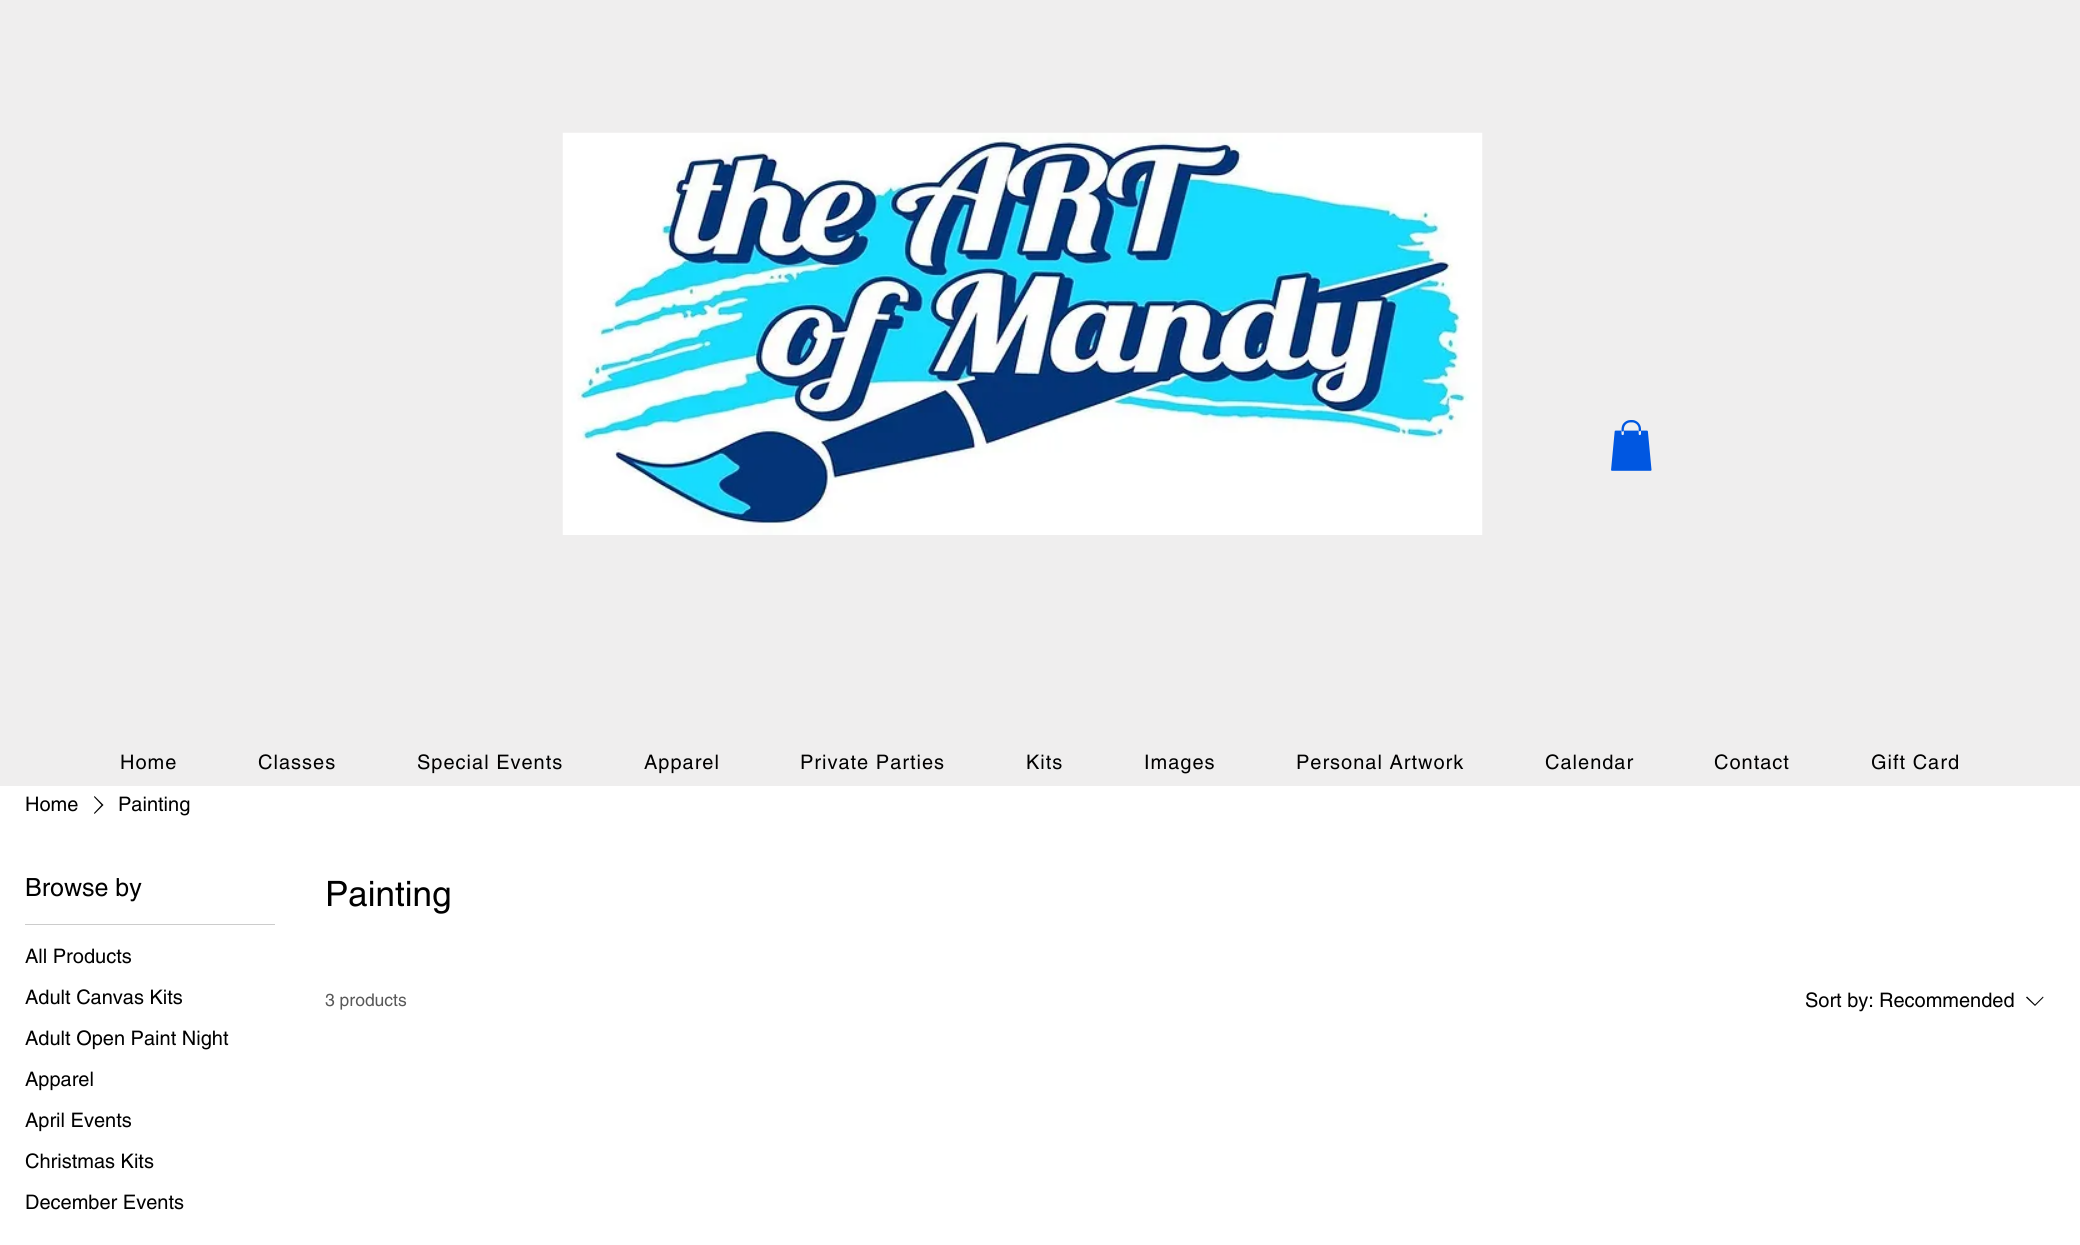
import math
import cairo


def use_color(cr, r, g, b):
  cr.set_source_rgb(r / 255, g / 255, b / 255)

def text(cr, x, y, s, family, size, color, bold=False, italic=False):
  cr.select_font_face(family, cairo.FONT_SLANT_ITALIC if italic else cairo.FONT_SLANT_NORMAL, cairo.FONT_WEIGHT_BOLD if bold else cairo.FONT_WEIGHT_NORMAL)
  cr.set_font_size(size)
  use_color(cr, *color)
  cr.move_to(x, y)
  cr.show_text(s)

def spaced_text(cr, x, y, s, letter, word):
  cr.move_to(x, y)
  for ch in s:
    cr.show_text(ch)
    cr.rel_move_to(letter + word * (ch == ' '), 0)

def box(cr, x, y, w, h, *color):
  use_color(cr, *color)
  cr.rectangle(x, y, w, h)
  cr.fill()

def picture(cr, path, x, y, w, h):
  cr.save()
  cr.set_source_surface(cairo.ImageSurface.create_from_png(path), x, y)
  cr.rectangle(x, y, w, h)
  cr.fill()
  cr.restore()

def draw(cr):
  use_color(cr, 255, 255, 255)
  cr.paint()
  box(cr, 0, 0, 2080, 786, 239, 238, 238)
  picture(cr, "img_01.png", 1611, 420, 41, 51)
  picture(cr, "img_02.png", 562, 132, 921, 403)
  use_color(cr, 0, 0, 0)
  cr.set_fill_rule(cairo.FILL_RULE_EVEN_ODD)
  cr.new_path()
  cr.move_to(94.5, 796)
  cr.line_to(103.5, 805)
  cr.line_to(94.5, 814)
  cr.line_to(94, 813)
  cr.line_to(101.5, 805)
  cr.line_to(94, 797)
  cr.close_path()
  cr.fill()
  box(cr, 25, 924, 250, 1, 204, 204, 204)
  use_color(cr, 0, 0, 0)
  cr.new_path()
  cr.move_to(2043, 996.5)
  cr.line_to(2043.5, 997.5)
  cr.line_to(2035, 1006)
  cr.line_to(2026, 997.5)
  cr.line_to(2027, 996.5)
  cr.line_to(2035, 1004.5)
  cr.close_path()
  cr.fill()
  cr.select_font_face("helvetica")
  cr.set_font_size(20)
  spaced_text(cr, 120, 769, "Home", 1, 0)
  spaced_text(cr, 258, 769, "Classes", 1, 0)
  spaced_text(cr, 417, 769, "Special Events", 1, 0)
  spaced_text(cr, 644, 769, "Apparel", 1, 0)
  spaced_text(cr, 800, 769, "Private Parties", 1, 0)
  spaced_text(cr, 1026, 769, "Kits", 1, 0)
  spaced_text(cr, 1144, 769, "Images", 1, 0)
  spaced_text(cr, 1296, 769, "Personal Artwork", 1, 0)
  spaced_text(cr, 1545, 769, "Calendar", 1, 0)
  spaced_text(cr, 1714, 769, "Contact", 1, 0)
  spaced_text(cr, 1871, 769, "Gift Card", 1, 0)
  text(cr, 25, 811, "Home", "helvetica", 20, (0, 0, 0))
  text(cr, 118, 811, "Painting", "helvetica", 20, (0, 0, 0))
  text(cr, 25, 896, "Browse by", "helvetica", 25, (0, 0, 0))
  text(cr, 25, 963, "All Products", "helvetica", 20, (0, 0, 0))
  text(cr, 25, 1004, "Adult Canvas Kits", "helvetica", 20, (0, 0, 0))
  text(cr, 25, 1045, "Adult Open Paint Night", "helvetica", 20, (0, 0, 0))
  text(cr, 25, 1086, "Apparel", "helvetica", 20, (0, 0, 0))
  text(cr, 25, 1127, "April Events", "helvetica", 20, (0, 0, 0))
  text(cr, 25, 1168, "Christmas Kits", "helvetica", 20, (0, 0, 0))
  text(cr, 25, 1209, "December Events", "helvetica", 20, (0, 0, 0))
  text(cr, 325, 906, "Painting", "helvetica", 35, (0, 0, 0))
  text(cr, 325, 1006, "3 products", "helvetica", 17.5, (89, 89, 89))
  text(cr, 1805, 1007, "Sort by:", "helvetica", 20, (0, 0, 0))
  text(cr, 1879, 1007, "Recommended", "helvetica", 20, (0, 0, 0))


surface = cairo.ImageSurface(cairo.FORMAT_RGB24, 2080, 1245)
cr = cairo.Context(surface)
options = cairo.FontOptions()
options.set_hint_metrics(cairo.HINT_METRICS_OFF)
options.set_hint_style(cairo.HINT_STYLE_NONE)
cr.set_font_options(options)
cr.set_miter_limit(4)
draw(cr)
surface.write_to_png("out.png")
